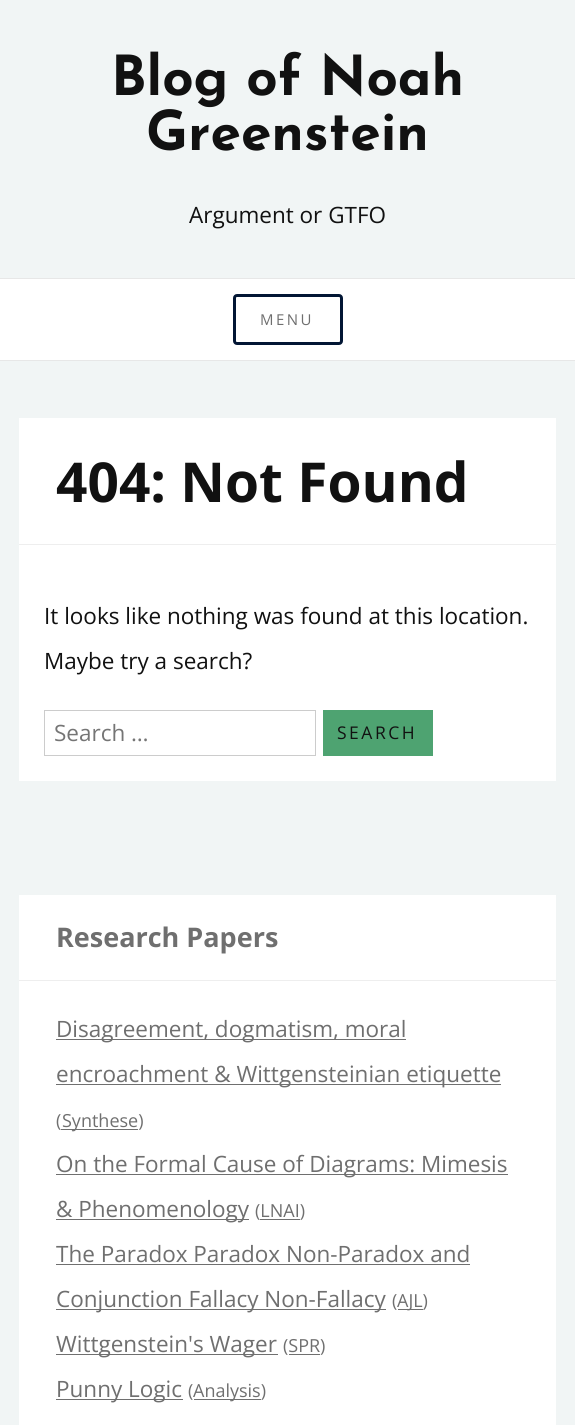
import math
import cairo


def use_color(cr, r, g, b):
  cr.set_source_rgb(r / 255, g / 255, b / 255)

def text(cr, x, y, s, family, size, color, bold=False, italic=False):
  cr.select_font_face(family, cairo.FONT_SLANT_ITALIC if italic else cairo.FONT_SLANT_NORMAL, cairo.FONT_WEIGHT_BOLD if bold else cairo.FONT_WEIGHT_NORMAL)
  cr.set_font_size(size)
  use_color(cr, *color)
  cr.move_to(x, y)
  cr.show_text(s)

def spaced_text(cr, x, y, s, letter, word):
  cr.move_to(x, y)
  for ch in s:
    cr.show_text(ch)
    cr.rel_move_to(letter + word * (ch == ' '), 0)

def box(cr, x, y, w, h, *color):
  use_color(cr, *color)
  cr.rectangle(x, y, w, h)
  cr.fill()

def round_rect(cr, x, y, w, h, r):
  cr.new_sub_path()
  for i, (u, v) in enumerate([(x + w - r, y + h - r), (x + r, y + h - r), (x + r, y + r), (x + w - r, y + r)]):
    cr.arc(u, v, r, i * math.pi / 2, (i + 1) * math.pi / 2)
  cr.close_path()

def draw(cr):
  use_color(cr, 241, 245, 245)
  cr.paint()
  box(cr, 0, 279, 575, 81, 255, 255, 255)
  box(cr, 0, 278, 575, 1, 231, 231, 231)
  box(cr, 0, 360, 575, 1, 231, 231, 231)
  round_rect(cr, 234.5, 295.5, 107, 48, 2.5)
  use_color(cr, 2, 22, 52)
  cr.set_line_width(3)
  cr.stroke()
  box(cr, 19, 418, 537, 126, 255, 255, 255)
  box(cr, 19, 544, 537, 1, 238, 238, 238)
  box(cr, 19, 545, 537, 236, 255, 255, 255)
  cr.rectangle(44.5, 710.5, 271, 45)
  use_color(cr, 204, 204, 204)
  cr.set_line_width(1)
  cr.stroke()
  box(cr, 323, 710, 110, 46, 78, 163, 113)
  box(cr, 19, 895, 537, 530, 255, 255, 255)
  box(cr, 19, 980, 537, 1, 238, 238, 238)
  box(cr, 56, 1039, 350, 1, 111, 111, 111)
  box(cr, 56, 1084, 445, 1, 111, 111, 111)
  box(cr, 61, 1129, 77, 1, 111, 111, 111)
  box(cr, 56, 1174, 452, 1, 111, 111, 111)
  box(cr, 56, 1219, 193, 1, 111, 111, 111)
  box(cr, 260, 1219, 40, 1, 111, 111, 111)
  box(cr, 56, 1264, 414, 1, 111, 111, 111)
  box(cr, 56, 1309, 330, 1, 111, 111, 111)
  box(cr, 398, 1309, 25, 1, 111, 111, 111)
  box(cr, 56, 1354, 222, 1, 111, 111, 111)
  box(cr, 289, 1354, 31, 1, 111, 111, 111)
  box(cr, 56, 1399, 127, 1, 111, 111, 111)
  box(cr, 194, 1399, 67, 1, 111, 111, 111)
  text(cr, 111, 95, "Blog of Noah", "Josefin Sans", 55, (17, 17, 17), bold=True)
  text(cr, 146, 150, "Greenstein", "Josefin Sans", 55, (17, 17, 17), bold=True)
  text(cr, 189, 223, "Argument or GTFO", "Open Sans", 22.5, (17, 17, 17))
  cr.set_font_size(15)
  use_color(cr, 111, 111, 111)
  spaced_text(cr, 260, 325, "MENU", 2.5, 0)
  text(cr, 56, 502, "404: Not Found", "Open Sans", 55, (17, 17, 17), bold=True)
  text(cr, 44, 624, "It looks like nothing was found at this location.", "Open Sans", 22.5, (17, 17, 17))
  text(cr, 44, 669, "Maybe try a search?", "Open Sans", 22.5, (17, 17, 17))
  text(cr, 54, 741, "Search …", "Open Sans", 22.5, (117, 117, 117))
  cr.set_font_size(17.5)
  use_color(cr, 17, 17, 17)
  spaced_text(cr, 337, 739, "SEARCH", 2.5, 0)
  text(cr, 56, 947, "Research Papers", "Open Sans", 27, (111, 111, 111), bold=True)
  text(cr, 56, 1037, "Disagreement, dogmatism, moral", "Open Sans", 22.5, (111, 111, 111))
  text(cr, 56, 1082, "encroachment & Wittgensteinian etiquette", "Open Sans", 22.5, (111, 111, 111))
  text(cr, 56, 1127, "(", "Open Sans", 18, (111, 111, 111))
  text(cr, 62, 1127, "Synthese)", "Open Sans", 18, (111, 111, 111))
  text(cr, 56, 1172, "On the Formal Cause of Diagrams: Mimesis", "Open Sans", 22.5, (111, 111, 111))
  text(cr, 56, 1217, "& Phenomenology", "Open Sans", 22.5, (111, 111, 111))
  text(cr, 255, 1217, "(LNAI)", "Open Sans", 18, (111, 111, 111))
  text(cr, 56, 1262, "The Paradox Paradox Non-Paradox and", "Open Sans", 22.5, (111, 111, 111))
  text(cr, 56, 1307, "Conjunction Fallacy Non-Fallacy", "Open Sans", 22.5, (111, 111, 111))
  text(cr, 392, 1307, "(", "Open Sans", 18, (111, 111, 111))
  text(cr, 397, 1307, "AJL)", "Open Sans", 18, (111, 111, 111))
  text(cr, 56, 1352, "Wittgenstein's Wager", "Open Sans", 22.5, (111, 111, 111))
  text(cr, 283, 1352, "(SPR)", "Open Sans", 18, (111, 111, 111))
  text(cr, 56, 1397, "Punny Logic", "Open Sans", 22.5, (111, 111, 111))
  text(cr, 188, 1397, "(", "Open Sans", 18, (111, 111, 111))
  text(cr, 193, 1397, "Analysis)", "Open Sans", 18, (111, 111, 111))


surface = cairo.ImageSurface(cairo.FORMAT_RGB24, 575, 1425)
cr = cairo.Context(surface)
options = cairo.FontOptions()
options.set_hint_metrics(cairo.HINT_METRICS_OFF)
options.set_hint_style(cairo.HINT_STYLE_NONE)
cr.set_font_options(options)
cr.set_miter_limit(4)
draw(cr)
surface.write_to_png("out.png")
